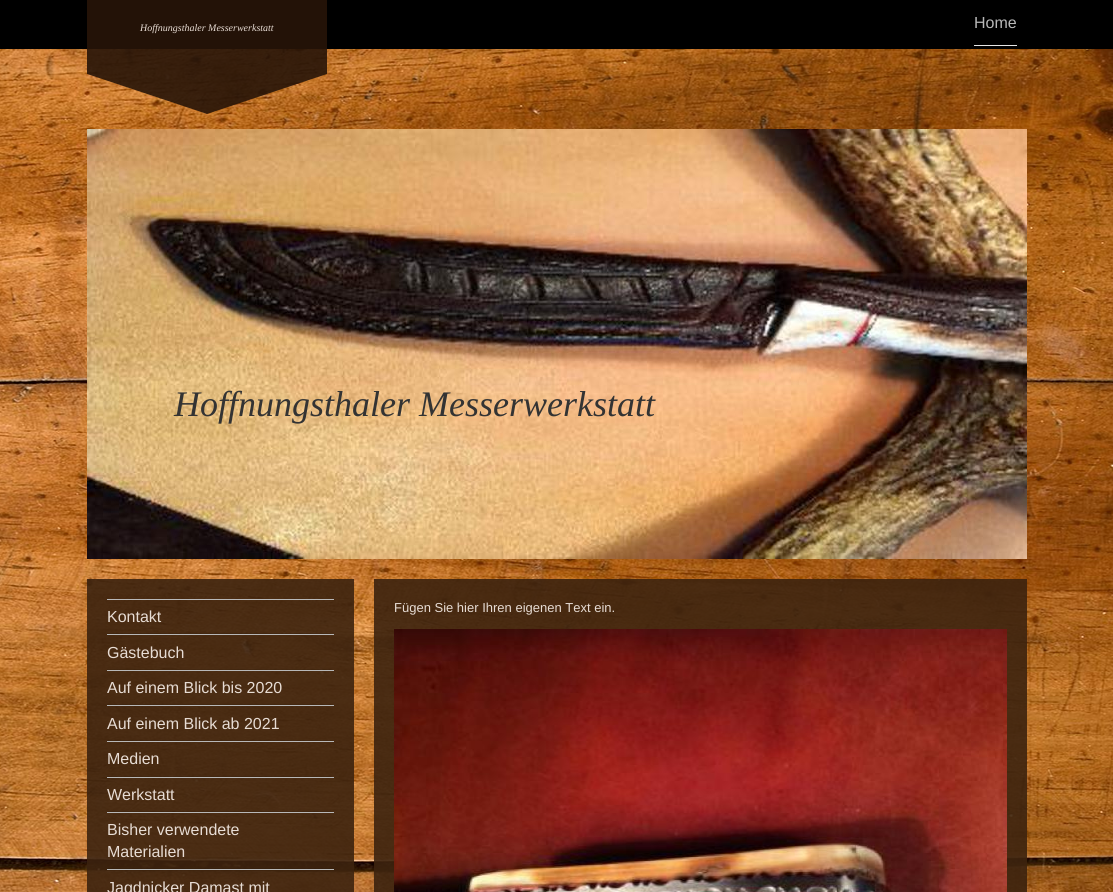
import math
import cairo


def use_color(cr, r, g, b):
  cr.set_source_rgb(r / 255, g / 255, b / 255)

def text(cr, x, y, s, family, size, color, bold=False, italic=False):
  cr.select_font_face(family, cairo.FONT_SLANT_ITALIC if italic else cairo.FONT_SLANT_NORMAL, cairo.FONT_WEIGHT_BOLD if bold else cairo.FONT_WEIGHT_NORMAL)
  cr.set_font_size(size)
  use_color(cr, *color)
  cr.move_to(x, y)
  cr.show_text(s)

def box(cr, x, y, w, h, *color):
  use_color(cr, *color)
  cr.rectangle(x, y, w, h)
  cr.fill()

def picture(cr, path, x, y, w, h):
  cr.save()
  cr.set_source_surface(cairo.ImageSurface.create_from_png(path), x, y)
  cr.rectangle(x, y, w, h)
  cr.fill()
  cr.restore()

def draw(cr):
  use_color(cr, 255, 255, 255)
  cr.paint()
  picture(cr, "img_01.png", 0, 49, 1113, 843)
  box(cr, 0, 0, 1113, 49, 0, 0, 0)
  cr.set_source_rgba(0.153, 0.082, 0.031, 0.9)
  cr.rectangle(87, 0, 240, 74)
  cr.fill()
  cr.new_path()
  cr.move_to(87, 74)
  cr.line_to(327, 74)
  cr.line_to(207, 114)
  cr.close_path()
  cr.fill()
  box(cr, 974, 45, 43, 1, 230, 230, 230)
  picture(cr, "img_02.png", 87, 129, 940, 430)
  cr.set_source_rgba(0.235, 0.137, 0.059, 0.9)
  cr.rectangle(374, 579, 653, 313)
  cr.fill()
  picture(cr, "img_03.png", 394, 629, 613, 263)
  cr.rectangle(87, 579, 267, 313)
  cr.fill()
  box(cr, 107, 599, 227, 1, 184, 184, 184)
  box(cr, 107, 634, 227, 1, 184, 184, 184)
  cr.set_source_rgba(0, 0, 0, 0.1)
  cr.new_path()
  cr.move_to(334, 634)
  cr.line_to(107, 634)
  cr.line_to(107, 633)
  cr.line_to(330, 633)
  cr.close_path()
  cr.fill()
  box(cr, 107, 670, 227, 1, 184, 184, 184)
  cr.set_source_rgba(0, 0, 0, 0.1)
  cr.new_path()
  cr.move_to(334, 670)
  cr.line_to(107, 670)
  cr.line_to(107, 669)
  cr.line_to(330, 669)
  cr.close_path()
  cr.fill()
  box(cr, 107, 705, 227, 1, 184, 184, 184)
  cr.set_source_rgba(0, 0, 0, 0.1)
  cr.new_path()
  cr.move_to(334, 705)
  cr.line_to(107, 705)
  cr.line_to(107, 704)
  cr.line_to(330, 704)
  cr.close_path()
  cr.fill()
  box(cr, 107, 741, 227, 1, 184, 184, 184)
  cr.set_source_rgba(0, 0, 0, 0.1)
  cr.new_path()
  cr.move_to(334, 741)
  cr.line_to(107, 741)
  cr.line_to(107, 740)
  cr.line_to(330, 740)
  cr.close_path()
  cr.fill()
  box(cr, 107, 777, 227, 1, 184, 184, 184)
  cr.set_source_rgba(0, 0, 0, 0.1)
  cr.new_path()
  cr.move_to(334, 777)
  cr.line_to(107, 777)
  cr.line_to(107, 776)
  cr.line_to(330, 776)
  cr.close_path()
  cr.fill()
  box(cr, 107, 812, 227, 1, 184, 184, 184)
  cr.set_source_rgba(0, 0, 0, 0.1)
  cr.new_path()
  cr.move_to(334, 812)
  cr.line_to(107, 812)
  cr.line_to(107, 811)
  cr.line_to(330, 811)
  cr.close_path()
  cr.fill()
  box(cr, 107, 869, 227, 1, 184, 184, 184)
  cr.set_source_rgba(0, 0, 0, 0.1)
  cr.new_path()
  cr.move_to(334, 869)
  cr.line_to(107, 869)
  cr.line_to(107, 868)
  cr.line_to(330, 868)
  cr.close_path()
  cr.fill()
  text(cr, 140, 31, "Hoffnungsthaler Messerwerkstatt", "Liberation Serif", 10, (231, 220, 212), italic=True)
  text(cr, 974, 28, "Home", "Liberation Sans", 16, (184, 184, 184))
  text(cr, 174, 416, "Hoffnungsthaler Messerwerkstatt", "Liberation Serif", 36, (51, 51, 51), italic=True)
  text(cr, 394, 612, "Fügen Sie hier Ihren eigenen Text ein.", "Liberation Sans", 13, (231, 220, 212))
  text(cr, 107, 622, "Kontakt", "Liberation Sans", 16, (231, 220, 212))
  text(cr, 107, 658, "Gästebuch", "Liberation Sans", 16, (231, 220, 212))
  text(cr, 107, 693, "Auf einem Blick bis 2020", "Liberation Sans", 16, (231, 220, 212))
  text(cr, 107, 729, "Auf einem Blick ab 2021", "Liberation Sans", 16, (231, 220, 212))
  text(cr, 107, 764, "Medien", "Liberation Sans", 16, (231, 220, 212))
  text(cr, 107, 800, "Werkstatt", "Liberation Sans", 16, (231, 220, 212))
  text(cr, 107, 835, "Bisher verwendete", "Liberation Sans", 16, (231, 220, 212))
  text(cr, 107, 857, "Materialien", "Liberation Sans", 16, (231, 220, 212))
  text(cr, 107, 893, "Jagdnicker Damast mit", "Liberation Sans", 16, (231, 220, 212))


surface = cairo.ImageSurface(cairo.FORMAT_RGB24, 1113, 892)
cr = cairo.Context(surface)
options = cairo.FontOptions()
options.set_hint_metrics(cairo.HINT_METRICS_OFF)
options.set_hint_style(cairo.HINT_STYLE_NONE)
cr.set_font_options(options)
cr.set_miter_limit(4)
draw(cr)
surface.write_to_png("out.png")
